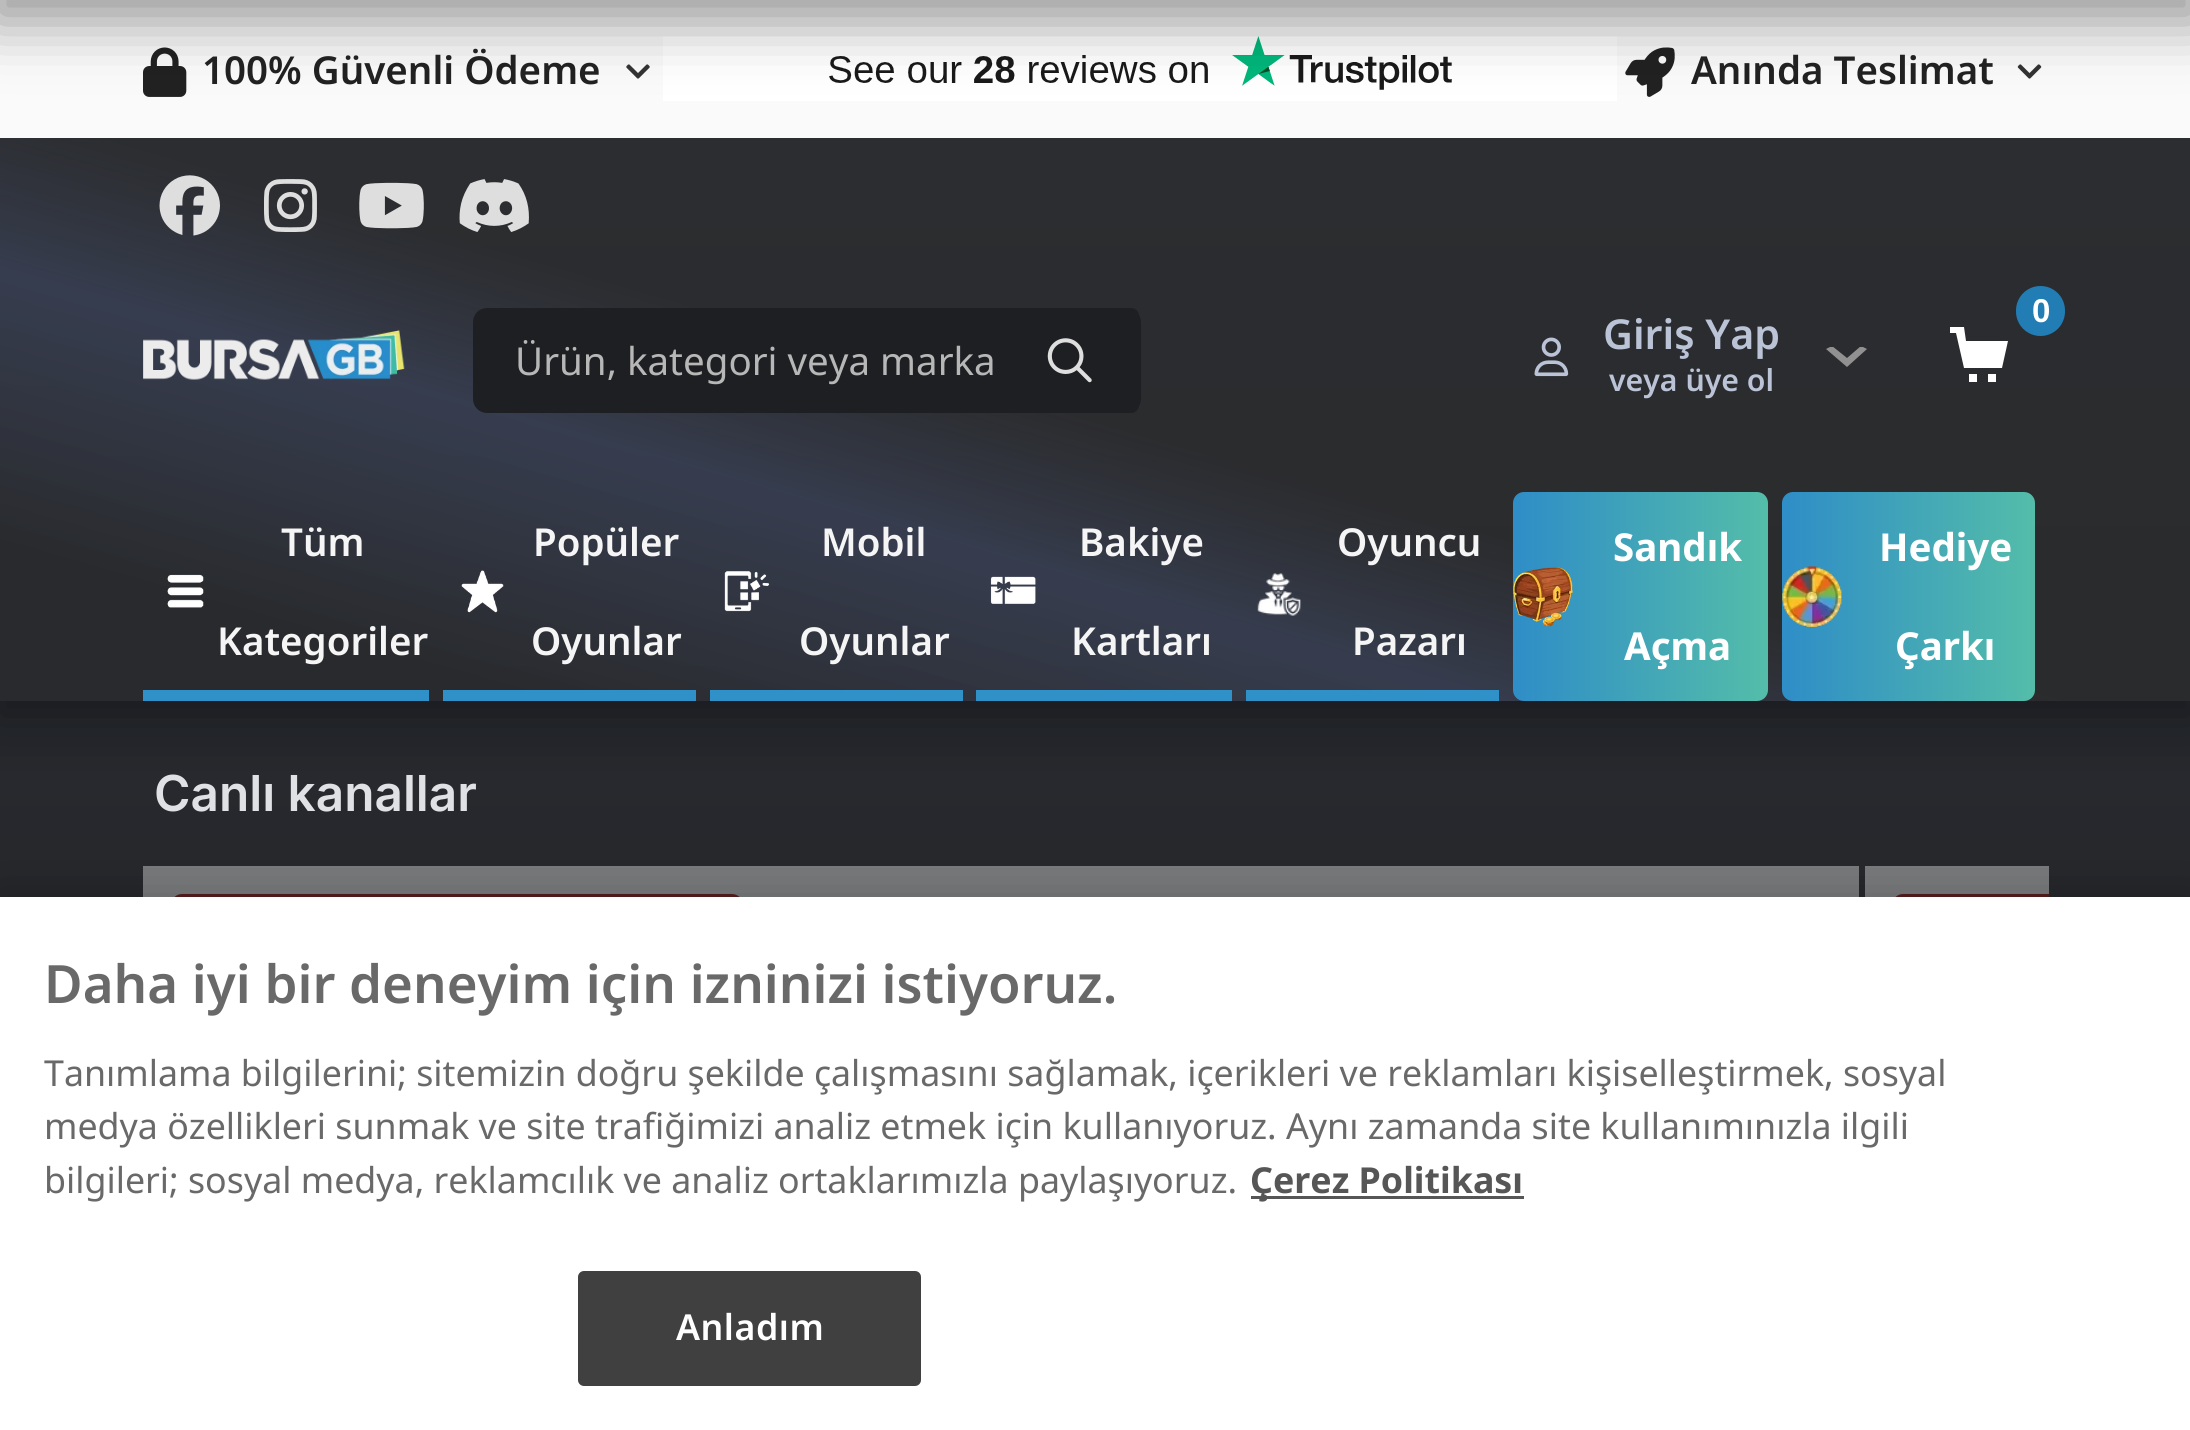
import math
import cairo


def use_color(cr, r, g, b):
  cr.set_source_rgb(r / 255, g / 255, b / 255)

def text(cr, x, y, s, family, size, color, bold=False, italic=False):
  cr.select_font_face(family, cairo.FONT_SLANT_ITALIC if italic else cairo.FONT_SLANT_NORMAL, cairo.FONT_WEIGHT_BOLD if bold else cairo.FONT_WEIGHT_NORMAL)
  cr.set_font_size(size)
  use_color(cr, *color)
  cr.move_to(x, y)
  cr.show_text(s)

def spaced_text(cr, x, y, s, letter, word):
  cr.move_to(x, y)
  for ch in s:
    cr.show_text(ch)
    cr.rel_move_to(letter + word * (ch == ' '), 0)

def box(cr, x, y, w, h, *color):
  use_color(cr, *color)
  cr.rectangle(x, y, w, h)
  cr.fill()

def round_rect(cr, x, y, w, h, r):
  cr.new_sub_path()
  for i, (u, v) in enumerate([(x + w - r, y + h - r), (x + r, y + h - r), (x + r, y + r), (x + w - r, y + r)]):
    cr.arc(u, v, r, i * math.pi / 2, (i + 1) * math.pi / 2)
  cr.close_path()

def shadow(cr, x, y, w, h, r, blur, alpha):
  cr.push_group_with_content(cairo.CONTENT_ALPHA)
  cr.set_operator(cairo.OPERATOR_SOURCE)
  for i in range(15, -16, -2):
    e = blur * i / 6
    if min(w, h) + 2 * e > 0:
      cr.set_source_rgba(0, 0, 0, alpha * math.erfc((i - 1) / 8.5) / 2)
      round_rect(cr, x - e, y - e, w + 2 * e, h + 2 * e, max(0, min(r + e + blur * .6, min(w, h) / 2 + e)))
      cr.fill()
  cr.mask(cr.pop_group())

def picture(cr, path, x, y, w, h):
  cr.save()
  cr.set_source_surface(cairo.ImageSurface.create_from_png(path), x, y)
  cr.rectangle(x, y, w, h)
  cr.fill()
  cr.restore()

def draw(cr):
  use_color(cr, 255, 255, 255)
  cr.paint()
  gradient = cairo.LinearGradient(1096, 0, 1096, 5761)
  gradient.add_color_stop_rgba(0, 0.184, 0.204, 0.255, 1)
  gradient.add_color_stop_rgba(0.22, 0.133, 0.133, 0.133, 1)
  gradient.add_color_stop_rgba(1, 0.133, 0.137, 0.149, 1)
  cr.set_source(gradient)
  cr.rectangle(0, 138, 2190, 759)
  cr.fill()
  gradient = cairo.LinearGradient(1096, 0, 1096, 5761)
  gradient.add_color_stop_rgba(0, 0.494, 0.502, 0.529, 1)
  gradient.add_color_stop_rgba(0.22, 0.467, 0.467, 0.467, 1)
  gradient.add_color_stop_rgba(1, 0.467, 0.471, 0.475, 1)
  cr.set_source(gradient)
  cr.rectangle(1865, 866, 184, 31)
  cr.fill()
  cr.rectangle(143, 866, 1716, 31)
  cr.fill()
  cr.save()
  cr.rectangle(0, 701, 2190, 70)
  cr.clip()
  use_color(cr, 5, 5, 5)
  shadow(cr, -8, 143, 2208, 580, 0, 29, 0.4)
  cr.restore()
  box(cr, 0, 0, 2190, 138, 250, 250, 250)
  picture(cr, "img_01.png", 143, 47, 44, 50)
  picture(cr, "img_02.png", 626, 64, 24, 15)
  picture(cr, "img_03.png", 663, 36, 954, 65)
  picture(cr, "img_04.png", 1625, 47, 50, 50)
  picture(cr, "img_05.png", 2017, 64, 25, 15)
  use_color(cr, 5, 5, 5)
  shadow(cr, -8, -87, 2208, 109, 0, 29, 0.4)
  gradient = cairo.LinearGradient(938, 970, 1254, -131)
  gradient.add_color_stop_rgba(0.13, 0.161, 0.165, 0.176, 1)
  gradient.add_color_stop_rgba(0.36, 0.22, 0.247, 0.322, 0.88)
  gradient.add_color_stop_rgba(0.5, 0.169, 0.169, 0.169, 0.72)
  cr.set_source(gradient)
  cr.rectangle(0, 138, 2190, 563)
  cr.fill()
  picture(cr, "img_06.png", 159, 175, 61, 61)
  picture(cr, "img_07.png", 264, 179, 53, 53)
  picture(cr, "img_08.png", 359, 182, 65, 47)
  picture(cr, "img_09.png", 459, 179, 70, 53)
  picture(cr, "img_10.png", 143, 330, 262, 50)
  use_color(cr, 30, 31, 34)
  round_rect(cr, 473, 308, 668, 105, 14)
  cr.fill()
  cr.new_path()
  cr.move_to(1001, 308)
  cr.line_to(1131, 308)
  cr.curve_to(1135.5, 308, 1139, 311.5, 1139, 316)
  cr.line_to(1139, 405)
  cr.curve_to(1139, 409.5, 1135.5, 413, 1131, 413)
  cr.line_to(1001, 413)
  cr.close_path()
  cr.fill()
  picture(cr, "img_11.png", 1047, 338, 45, 45)
  use_color(cr, 34, 125, 180)
  round_rect(cr, 2016, 286, 49, 50, 24.5)
  cr.fill()
  use_color(cr, 255, 255, 255)
  cr.new_path()
  cr.move_to(2008, 341)
  cr.line_to(2002, 368)
  cr.line_to(1964, 368)
  cr.line_to(1956, 333)
  cr.line_to(1950, 333)
  cr.line_to(1950, 327)
  cr.line_to(1964, 327)
  cr.line_to(1966, 341)
  cr.close_path()
  cr.move_to(1969, 382)
  cr.line_to(1977, 382)
  cr.line_to(1977, 374)
  cr.line_to(1969, 374)
  cr.close_path()
  cr.move_to(1988, 382)
  cr.line_to(1996, 382)
  cr.line_to(1996, 374)
  cr.line_to(1988, 374)
  cr.close_path()
  cr.fill()
  picture(cr, "img_12.png", 1534, 337, 35, 40)
  cr.save()
  cr.rectangle(1826, 347, 41, 22)
  cr.clip()
  use_color(cr, 145, 145, 145)
  cr.new_path()
  cr.move_to(1867, 349)
  cr.line_to(1861, 346)
  cr.line_to(1847, 358)
  cr.line_to(1832, 346)
  cr.line_to(1826, 349)
  cr.line_to(1847, 367)
  cr.close_path()
  cr.fill()
  cr.restore()
  box(cr, 143, 690, 286, 11, 48, 145, 200)
  picture(cr, "img_13.png", 167, 574, 37, 34)
  box(cr, 443, 690, 253, 11, 48, 145, 200)
  picture(cr, "img_14.png", 461, 570, 43, 43)
  box(cr, 710, 690, 253, 11, 48, 145, 200)
  picture(cr, "img_15.png", 724, 571, 46, 41)
  box(cr, 976, 690, 256, 11, 48, 145, 200)
  picture(cr, "img_16.png", 990, 576, 46, 28)
  box(cr, 1246, 690, 253, 11, 48, 145, 200)
  picture(cr, "img_17.png", 1257, 573, 44, 43)
  gradient = cairo.LinearGradient(1513, 597, 1768, 597)
  gradient.add_color_stop_rgba(0, 0.184, 0.553, 0.78, 1)
  gradient.add_color_stop_rgba(1, 0.329, 0.741, 0.663, 1)
  cr.set_source(gradient)
  round_rect(cr, 1513, 492, 255, 209, 11)
  cr.fill()
  picture(cr, "img_18.png", 1513, 567, 60, 60)
  gradient = cairo.LinearGradient(1782, 597, 2035, 597)
  gradient.add_color_stop_rgba(0, 0.184, 0.553, 0.78, 1)
  gradient.add_color_stop_rgba(1, 0.329, 0.741, 0.663, 1)
  cr.set_source(gradient)
  round_rect(cr, 1782, 492, 253, 209, 11)
  cr.fill()
  picture(cr, "img_19.png", 1782, 566, 61, 61)
  use_color(cr, 87, 30, 32)
  round_rect(cr, 171, 894, 572, 60, 11)
  cr.fill()
  cr.new_path()
  cr.move_to(1903, 894)
  cr.line_to(2049, 894)
  cr.line_to(2049, 954)
  cr.line_to(1903, 954)
  cr.curve_to(1897, 954, 1892, 949, 1892, 943)
  cr.line_to(1892, 905)
  cr.curve_to(1892, 899, 1897, 894, 1903, 894)
  cr.close_path()
  cr.fill()
  use_color(cr, 0, 0, 0)
  shadow(cr, 0, 897, 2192, 533, 0, 25, 0.2)
  box(cr, 0, 897, 2190, 533, 255, 255, 255)
  box(cr, 1251, 1196, 273, 3, 86, 86, 86)
  use_color(cr, 64, 64, 64)
  round_rect(cr, 579.5, 1272.5, 340, 112, 4.5)
  cr.fill_preserve()
  cr.set_line_width(3)
  cr.stroke()
  text(cr, 202, 84, "100% Güvenli Ödeme", "Noto Sans SemiBold", 38.5, (33, 33, 33))
  text(cr, 1691, 84, "Anında Teslimat", "Noto Sans SemiBold", 38.5, (33, 33, 33))
  text(cr, 515, 375, "Ürün, kategori veya marka", "Noto Sans", 38.5, (183, 183, 183))
  text(cr, 2032, 322, "0", "Liberation Sans", 33, (255, 255, 255), bold=True)
  text(cr, 1603, 349, "Giriş Yap", "Noto Sans SemiBold", 41.25, (187, 195, 214))
  text(cr, 1609, 391, "veya üye ol", "Noto Sans SemiBold", 30.25, (187, 195, 214))
  text(cr, 281, 556, "Tüm", "Noto Sans SemiBold", 38.5, (245, 245, 245))
  text(cr, 217, 655, "Kategoriler", "Noto Sans SemiBold", 38.5, (245, 245, 245))
  text(cr, 533, 556, "Popüler", "Noto Sans SemiBold", 38.5, (245, 245, 245))
  text(cr, 531, 655, "Oyunlar", "Noto Sans SemiBold", 38.5, (245, 245, 245))
  text(cr, 821, 556, "Mobil", "Noto Sans SemiBold", 38.5, (245, 245, 245))
  text(cr, 799, 655, "Oyunlar", "Noto Sans SemiBold", 38.5, (245, 245, 245))
  text(cr, 1079, 556, "Bakiye", "Noto Sans SemiBold", 38.5, (245, 245, 245))
  text(cr, 1071, 655, "Kartları", "Noto Sans SemiBold", 38.5, (245, 245, 245))
  text(cr, 1337, 556, "Oyuncu", "Noto Sans SemiBold", 38.5, (245, 245, 245))
  text(cr, 1352, 655, "Pazarı", "Noto Sans SemiBold", 38.5, (245, 245, 245))
  text(cr, 1613, 561, "Sandık", "Noto Sans", 38.5, (255, 255, 255), bold=True)
  text(cr, 1624, 660, "Açma", "Noto Sans", 38.5, (255, 255, 255), bold=True)
  text(cr, 1879, 561, "Hediye", "Noto Sans", 38.5, (255, 255, 255), bold=True)
  text(cr, 1895, 660, "Çarkı", "Noto Sans", 38.5, (255, 255, 255), bold=True)
  text(cr, 154, 811, "Canlı kanallar", "Inter SemiBold", 49.5, (224, 225, 229))
  text(cr, 44, 1003, "Daha iyi bir deneyim için izninizi istiyoruz.", "Noto Sans SemiBold", 52.8, (105, 105, 105))
  text(cr, 44, 1086, "Tanımlama bilgilerini; sitemizin doğru şekilde çalışmasını sağlamak, içerikleri ve reklamları kişiselleştirmek, sosyal", "Noto Sans", 35.77, (105, 105, 105))
  text(cr, 44, 1139, "medya özellikleri sunmak ve site trafiğimizi analiz etmek için kullanıyoruz. Aynı zamanda site kullanımınızla ilgili", "Noto Sans", 35.77, (105, 105, 105))
  text(cr, 44, 1193, "bilgileri; sosyal medya, reklamcılık ve analiz ortaklarımızla paylaşıyoruz.", "Noto Sans", 35.77, (105, 105, 105))
  text(cr, 1250, 1193, "Çerez Politikası", "Noto Sans", 35.77, (86, 86, 86), bold=True)
  cr.select_font_face("Noto Sans SemiBold")
  use_color(cr, 255, 255, 255)
  spaced_text(cr, 676, 1340, "Anladım", 0.5, 0)


surface = cairo.ImageSurface(cairo.FORMAT_RGB24, 2190, 1430)
cr = cairo.Context(surface)
options = cairo.FontOptions()
options.set_hint_metrics(cairo.HINT_METRICS_OFF)
options.set_hint_style(cairo.HINT_STYLE_NONE)
cr.set_font_options(options)
cr.set_miter_limit(4)
draw(cr)
surface.write_to_png("out.png")
